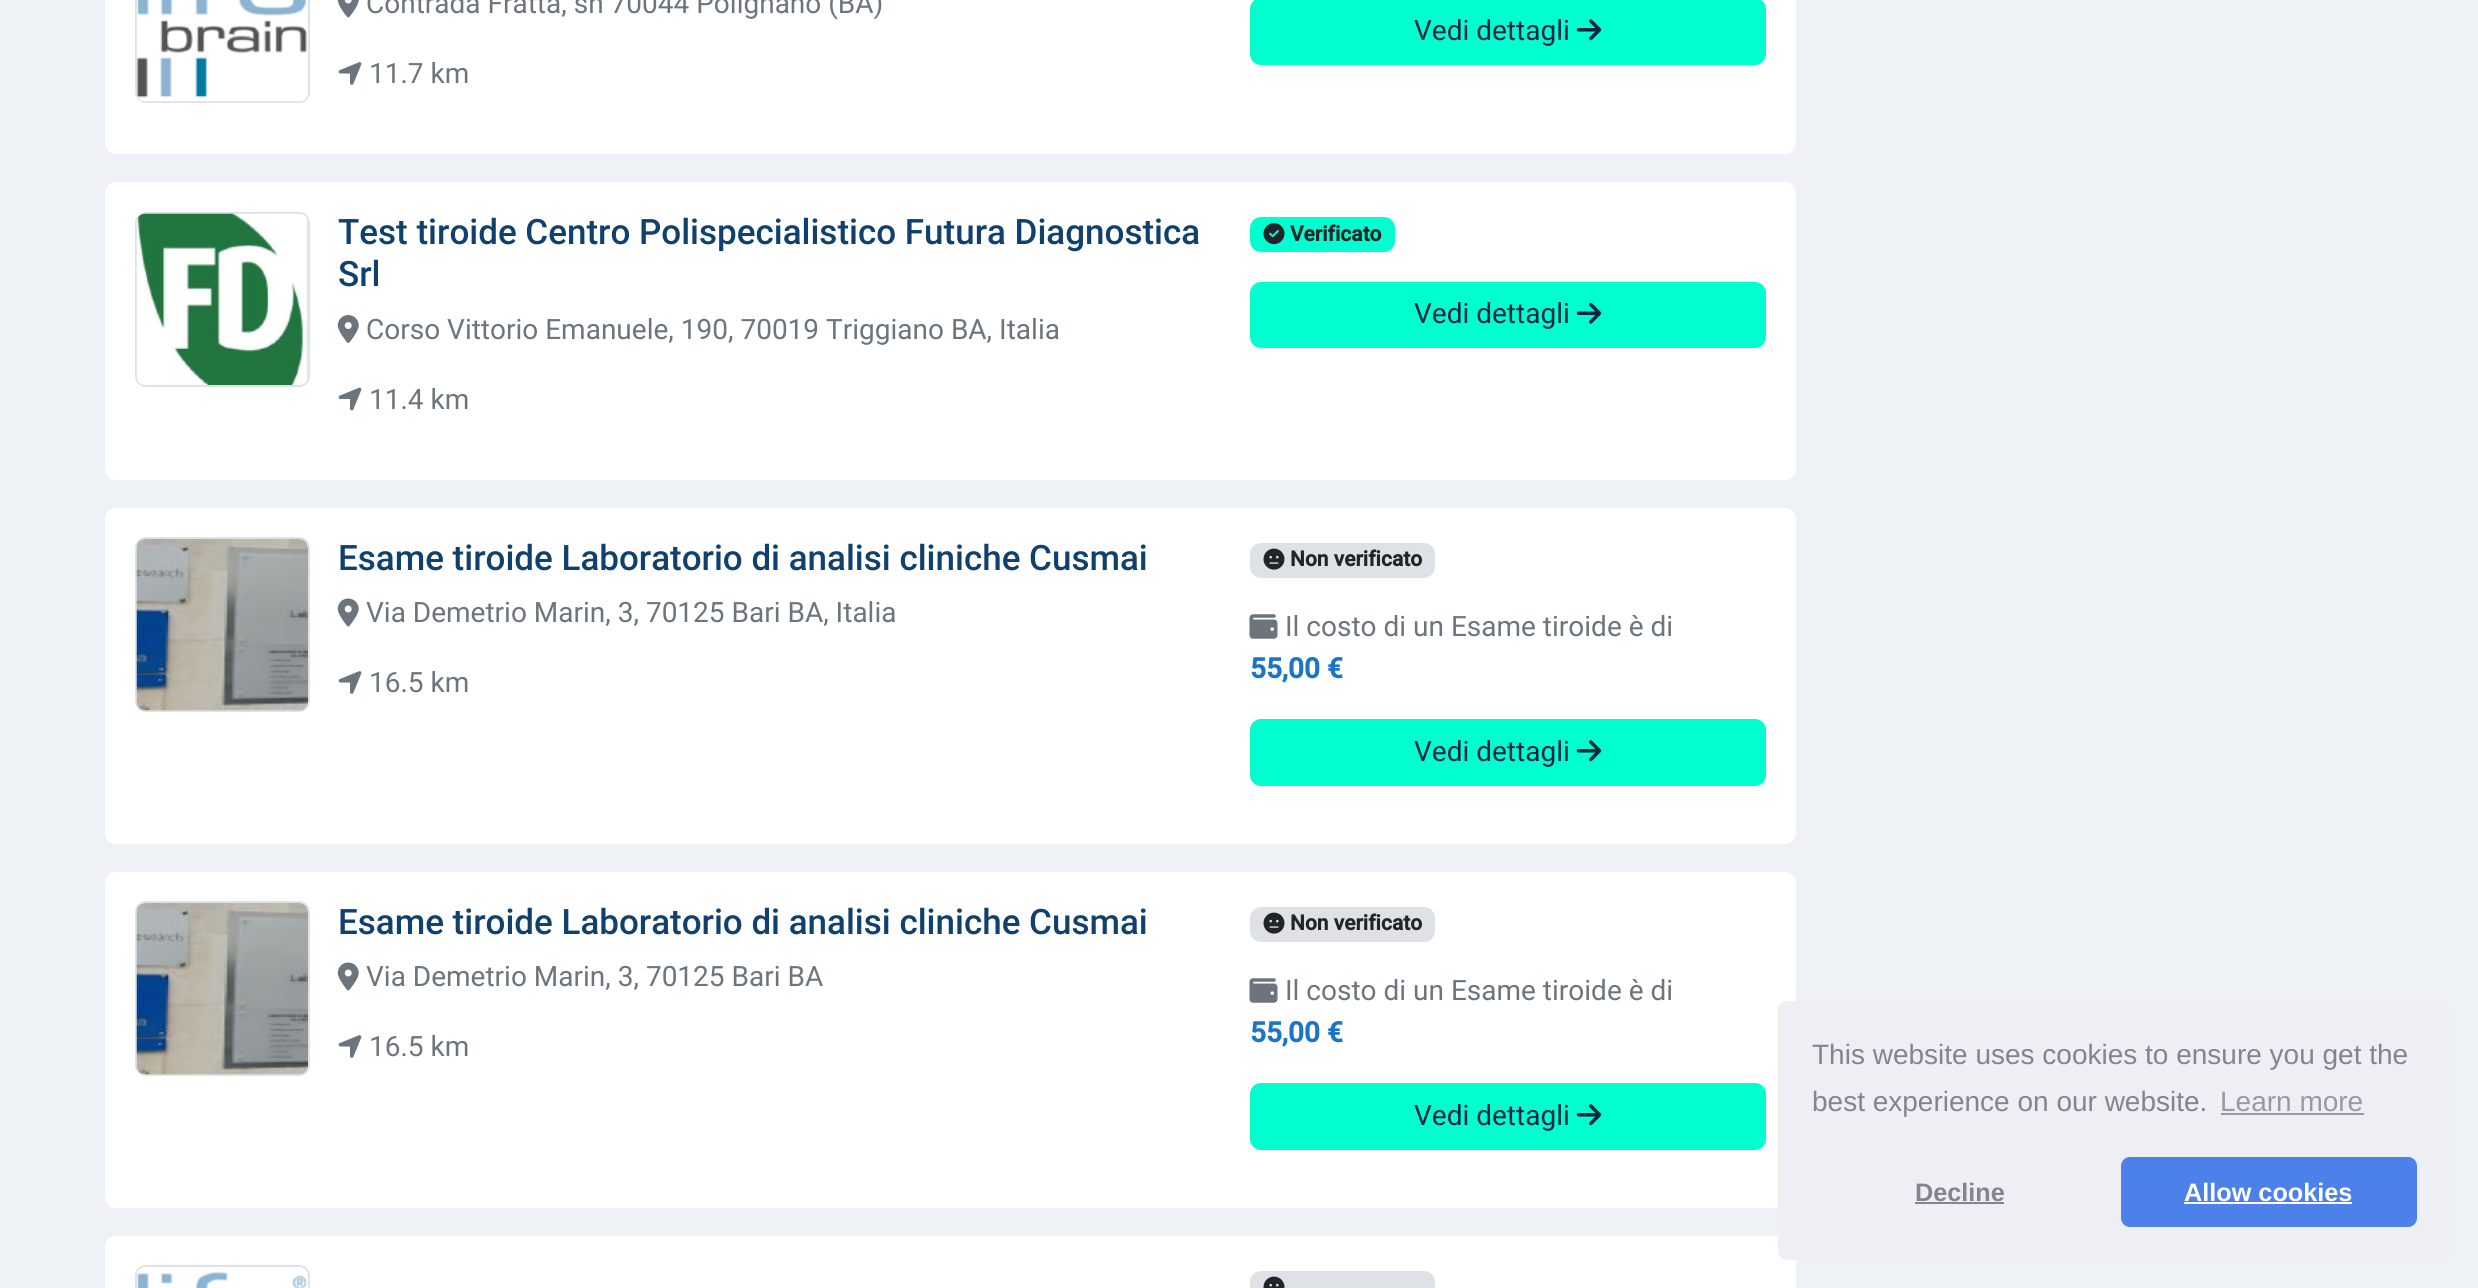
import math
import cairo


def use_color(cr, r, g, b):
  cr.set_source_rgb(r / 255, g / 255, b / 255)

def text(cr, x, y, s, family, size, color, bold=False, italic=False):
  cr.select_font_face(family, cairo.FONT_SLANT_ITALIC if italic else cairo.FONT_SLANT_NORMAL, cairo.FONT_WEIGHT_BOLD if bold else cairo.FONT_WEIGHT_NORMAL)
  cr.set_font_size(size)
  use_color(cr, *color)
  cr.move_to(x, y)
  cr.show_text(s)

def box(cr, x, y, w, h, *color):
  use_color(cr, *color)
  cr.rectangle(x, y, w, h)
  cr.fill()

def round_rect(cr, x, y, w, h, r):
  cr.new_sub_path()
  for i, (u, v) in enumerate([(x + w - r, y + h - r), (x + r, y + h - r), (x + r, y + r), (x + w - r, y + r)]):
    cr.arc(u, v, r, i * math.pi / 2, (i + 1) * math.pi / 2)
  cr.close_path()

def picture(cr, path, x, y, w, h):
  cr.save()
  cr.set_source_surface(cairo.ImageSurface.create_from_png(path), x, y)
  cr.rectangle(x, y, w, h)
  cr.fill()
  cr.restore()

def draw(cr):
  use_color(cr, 238, 242, 247)
  cr.paint()
  use_color(cr, 255, 255, 255)
  round_rect(cr, 106, -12, 1689, 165, 10)
  cr.fill_preserve()
  cr.stroke()
  round_rect(cr, 136, -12, 173, 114, 10)
  use_color(cr, 222, 226, 230)
  cr.stroke()
  picture(cr, "img_01.png", 136, 0, 172, 102)
  picture(cr, "img_02.png", 337, 0, 22, 18)
  picture(cr, "img_03.png", 338, 62, 24, 23)
  use_color(cr, 0, 255, 208)
  round_rect(cr, 1251, -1, 514, 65, 10)
  cr.fill_preserve()
  cr.stroke()
  picture(cr, "img_04.png", 1576, 19, 26, 22)
  use_color(cr, 255, 255, 255)
  round_rect(cr, 106, 183, 1689, 296, 10)
  cr.fill_preserve()
  cr.stroke()
  round_rect(cr, 136, 213, 173, 173, 10)
  use_color(cr, 222, 226, 230)
  cr.stroke()
  picture(cr, "img_05.png", 136, 213, 172, 172)
  picture(cr, "img_06.png", 337, 315, 22, 28)
  picture(cr, "img_07.png", 338, 387, 24, 24)
  use_color(cr, 0, 255, 208)
  round_rect(cr, 1250, 217, 145, 35, 11)
  cr.fill()
  picture(cr, "img_08.png", 1263, 223, 22, 22)
  round_rect(cr, 1251, 283, 514, 64, 10)
  cr.fill_preserve()
  cr.stroke()
  picture(cr, "img_09.png", 1576, 302, 26, 22)
  use_color(cr, 255, 255, 255)
  round_rect(cr, 106, 509, 1689, 334, 10)
  cr.fill_preserve()
  cr.stroke()
  round_rect(cr, 136, 538, 173, 173, 10)
  use_color(cr, 222, 226, 230)
  cr.stroke()
  picture(cr, "img_10.png", 136, 539, 172, 172)
  picture(cr, "img_11.png", 337, 598, 22, 29)
  picture(cr, "img_03.png", 338, 671, 24, 23)
  round_rect(cr, 1250, 543, 185, 35, 11)
  cr.fill()
  picture(cr, "img_12.png", 1263, 548, 22, 22)
  picture(cr, "img_13.png", 1249, 614, 29, 25)
  use_color(cr, 0, 255, 208)
  round_rect(cr, 1251, 720, 514, 65, 10)
  cr.fill_preserve()
  cr.stroke()
  picture(cr, "img_04.png", 1576, 740, 26, 22)
  use_color(cr, 255, 255, 255)
  round_rect(cr, 106, 873, 1689, 334, 10)
  cr.fill_preserve()
  cr.stroke()
  round_rect(cr, 136, 902, 173, 173, 10)
  use_color(cr, 222, 226, 230)
  cr.stroke()
  picture(cr, "img_10.png", 136, 903, 172, 172)
  picture(cr, "img_11.png", 337, 962, 22, 29)
  picture(cr, "img_03.png", 338, 1035, 24, 23)
  round_rect(cr, 1250, 907, 185, 35, 11)
  cr.fill()
  picture(cr, "img_12.png", 1263, 912, 22, 22)
  picture(cr, "img_13.png", 1249, 978, 29, 25)
  use_color(cr, 0, 255, 208)
  round_rect(cr, 1251, 1084, 514, 65, 10)
  cr.fill_preserve()
  cr.stroke()
  picture(cr, "img_04.png", 1576, 1104, 26, 22)
  use_color(cr, 255, 255, 255)
  round_rect(cr, 106, 1237, 1689, 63, 10)
  cr.fill_preserve()
  cr.stroke()
  round_rect(cr, 136, 1266, 173, 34, 10)
  use_color(cr, 222, 226, 230)
  cr.stroke()
  picture(cr, "img_14.png", 136, 1267, 172, 21)
  round_rect(cr, 1250, 1271, 185, 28, 11)
  cr.fill()
  picture(cr, "img_15.png", 1263, 1276, 22, 12)
  use_color(cr, 237, 239, 245)
  round_rect(cr, 1778, 1001, 672, 259, 9)
  cr.fill()
  box(cr, 2221, 1113, 143, 2, 152, 153, 165)
  box(cr, 1915, 1202, 89, 2, 131, 131, 145)
  use_color(cr, 75, 129, 232)
  round_rect(cr, 2121, 1157, 296, 70, 9)
  cr.fill()
  box(cr, 2184, 1202, 168, 2, 255, 255, 255)
  text(cr, 366, 13, "Contrada Fratta, sn 70044 Polignano (BA)", "Roboto", 28, (108, 117, 125))
  text(cr, 369, 83, "11.7 km", "Roboto", 28, (108, 117, 125))
  text(cr, 1414, 40, "Vedi dettagli", "Roboto", 28, (9, 38, 65))
  text(cr, 338, 244, "Test tiroide Centro Polispecialistico Futura Diagnostica", "Roboto Medium", 35, (15, 64, 110))
  text(cr, 338, 286, "Srl", "Roboto Medium", 35, (15, 64, 110))
  text(cr, 366, 339, "Corso Vittorio Emanuele, 190, 70019 Triggiano BA, Italia", "Roboto", 28, (108, 117, 125))
  text(cr, 369, 409, "11.4 km", "Roboto", 28, (108, 117, 125))
  text(cr, 1290, 241, "Verificato", "Roboto", 21, (33, 37, 41), bold=True)
  text(cr, 1414, 323, "Vedi dettagli", "Roboto", 28, (9, 38, 65))
  text(cr, 338, 570, "Esame tiroide Laboratorio di analisi cliniche Cusmai", "Roboto Medium", 35, (15, 64, 110))
  text(cr, 366, 622, "Via Demetrio Marin, 3, 70125 Bari BA, Italia", "Roboto", 28, (108, 117, 125))
  text(cr, 369, 692, "16.5 km", "Roboto", 28, (108, 117, 125))
  text(cr, 1290, 566, "Non verificato", "Roboto", 21, (33, 37, 41), bold=True)
  text(cr, 1285, 636, "Il costo di un Esame tiroide è di", "Roboto", 28, (108, 117, 125))
  text(cr, 1250, 678, "55,00 €", "Roboto", 28, (27, 116, 200), bold=True)
  text(cr, 1414, 761, "Vedi dettagli", "Roboto", 28, (9, 38, 65))
  text(cr, 338, 934, "Esame tiroide Laboratorio di analisi cliniche Cusmai", "Roboto Medium", 35, (15, 64, 110))
  text(cr, 366, 986, "Via Demetrio Marin, 3, 70125 Bari BA", "Roboto", 28, (108, 117, 125))
  text(cr, 369, 1056, "16.5 km", "Roboto", 28, (108, 117, 125))
  text(cr, 1290, 930, "Non verificato", "Roboto", 21, (33, 37, 41), bold=True)
  text(cr, 1285, 1000, "Il costo di un Esame tiroide è di", "Roboto", 28, (108, 117, 125))
  text(cr, 1250, 1042, "55,00 €", "Roboto", 28, (27, 116, 200), bold=True)
  text(cr, 1414, 1125, "Vedi dettagli", "Roboto", 28, (9, 38, 65))
  text(cr, 1812, 1064, "This website uses cookies to ensure you get the", "Liberation Sans", 28, (131, 131, 145))
  text(cr, 1812, 1111, "best experience on our website.", "Liberation Sans", 28, (131, 131, 145))
  text(cr, 2220, 1111, "Learn more", "Liberation Sans", 28, (152, 153, 165))
  text(cr, 1915, 1201, "Decline", "Liberation Sans", 25.25, (131, 131, 145), bold=True)
  text(cr, 2184, 1201, "Allow cookies", "Liberation Sans", 25.25, (255, 255, 255), bold=True)


surface = cairo.ImageSurface(cairo.FORMAT_RGB24, 2478, 1288)
cr = cairo.Context(surface)
options = cairo.FontOptions()
options.set_hint_metrics(cairo.HINT_METRICS_OFF)
options.set_hint_style(cairo.HINT_STYLE_NONE)
cr.set_font_options(options)
cr.set_miter_limit(4)
draw(cr)
surface.write_to_png("out.png")
